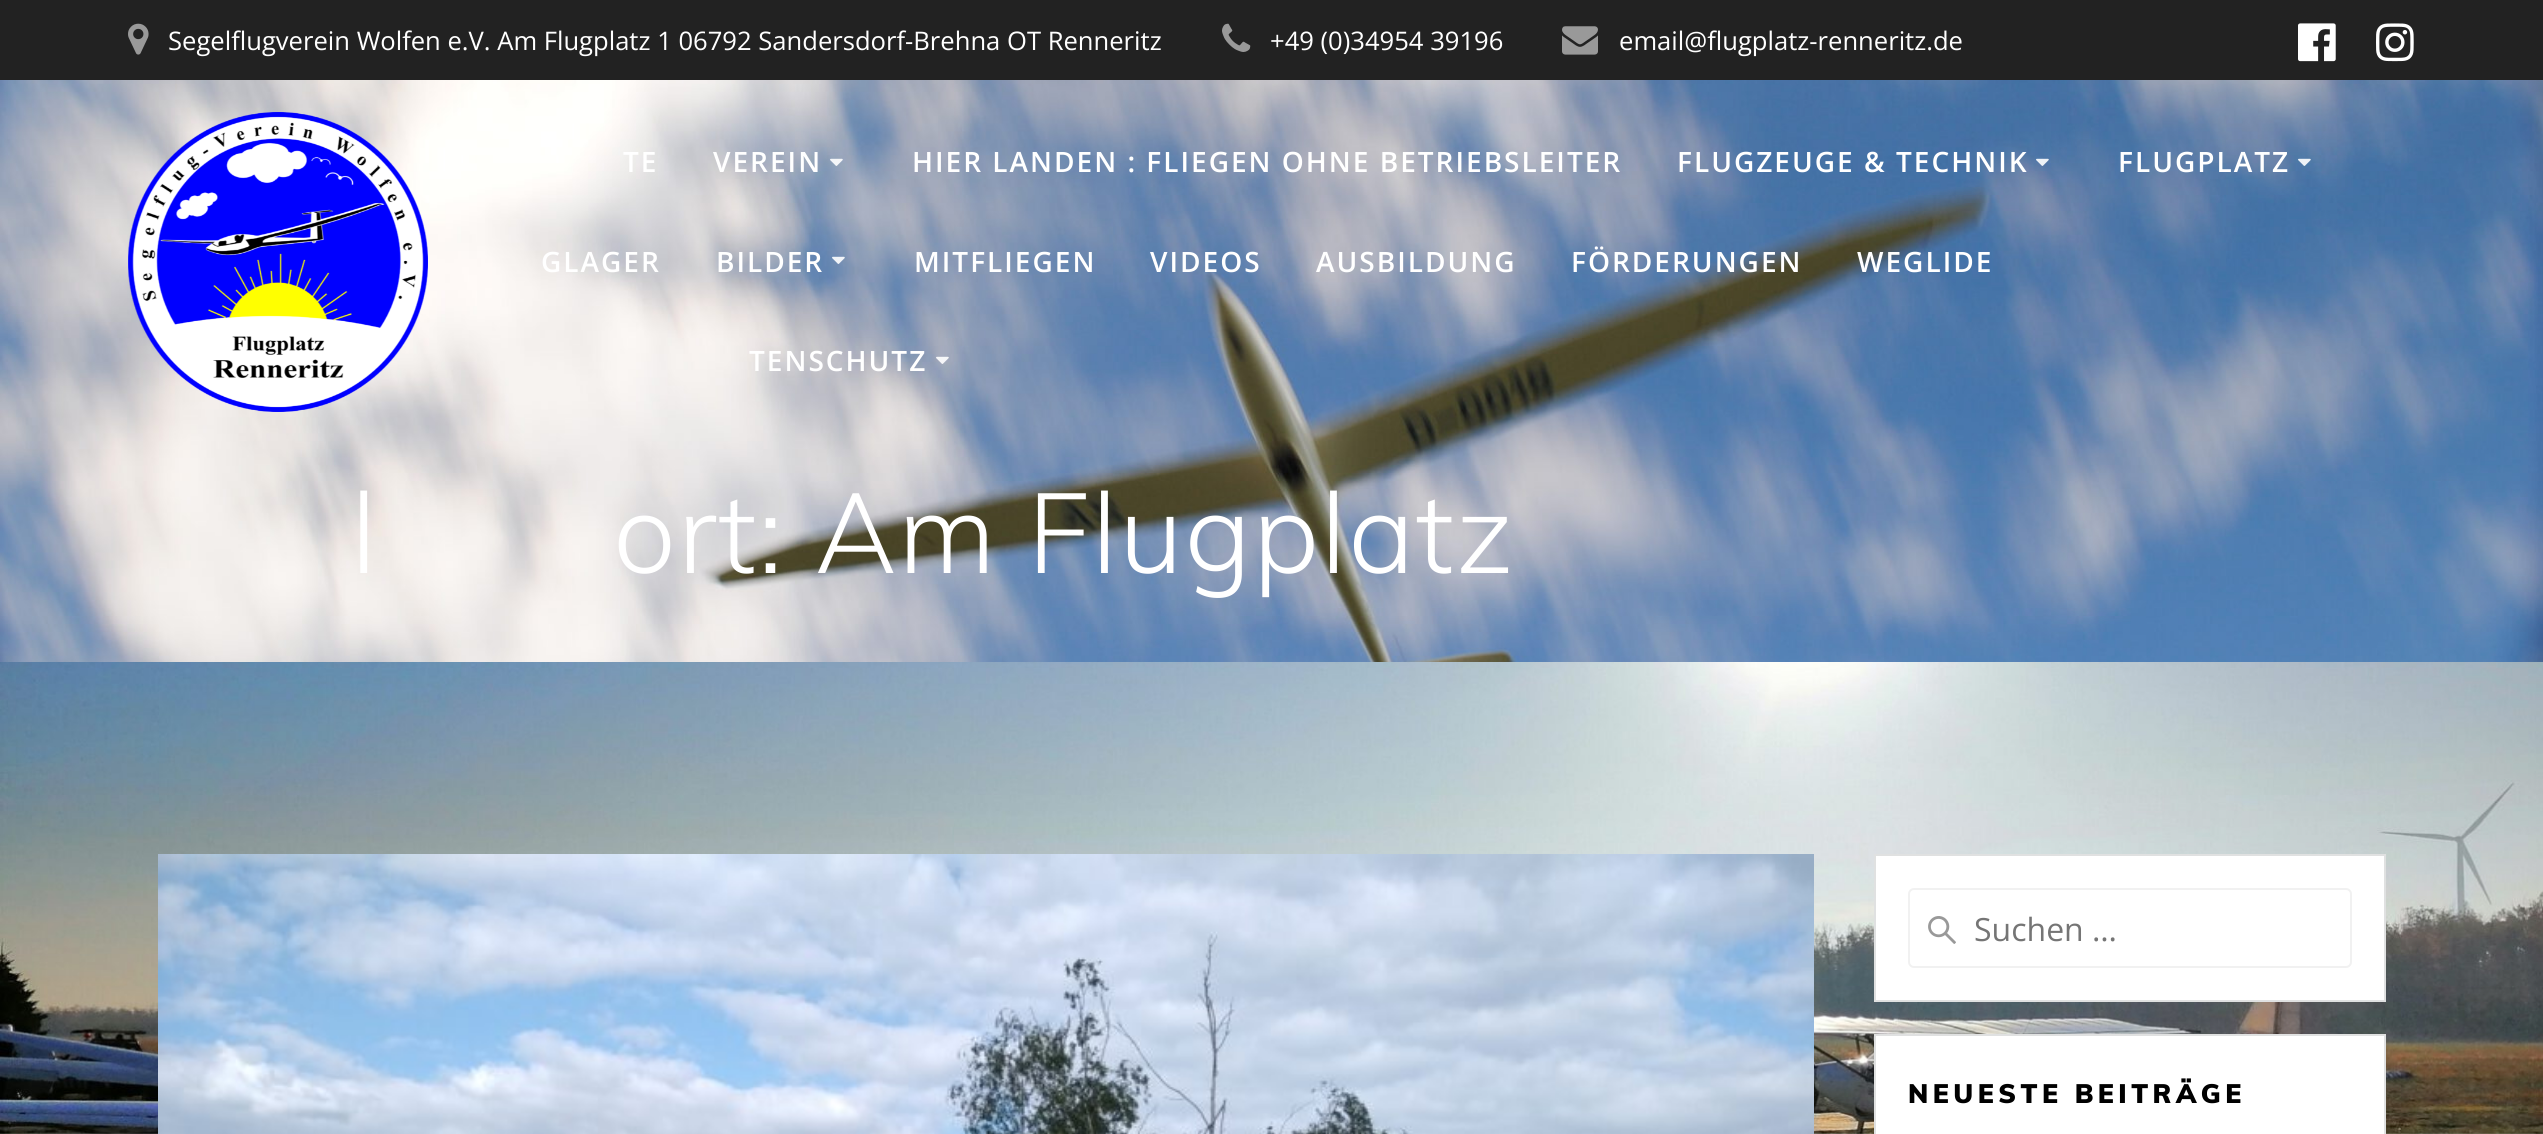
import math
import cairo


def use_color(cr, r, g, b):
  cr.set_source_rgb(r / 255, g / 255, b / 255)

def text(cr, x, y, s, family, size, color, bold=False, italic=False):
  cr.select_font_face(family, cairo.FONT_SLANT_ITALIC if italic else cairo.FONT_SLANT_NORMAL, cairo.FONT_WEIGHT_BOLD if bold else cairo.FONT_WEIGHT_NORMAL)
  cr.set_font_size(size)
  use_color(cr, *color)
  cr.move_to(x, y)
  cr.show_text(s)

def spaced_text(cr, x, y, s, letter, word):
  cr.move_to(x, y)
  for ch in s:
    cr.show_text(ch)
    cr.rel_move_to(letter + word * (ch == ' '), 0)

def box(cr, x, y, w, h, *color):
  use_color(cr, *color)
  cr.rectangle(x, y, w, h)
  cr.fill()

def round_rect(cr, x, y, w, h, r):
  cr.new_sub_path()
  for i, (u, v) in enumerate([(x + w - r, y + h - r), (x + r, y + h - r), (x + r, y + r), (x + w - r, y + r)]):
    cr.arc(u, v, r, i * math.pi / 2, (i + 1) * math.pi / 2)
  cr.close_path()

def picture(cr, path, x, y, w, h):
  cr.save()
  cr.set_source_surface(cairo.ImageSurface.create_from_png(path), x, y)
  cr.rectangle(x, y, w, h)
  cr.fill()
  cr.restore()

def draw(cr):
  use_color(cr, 255, 255, 255)
  cr.paint()
  picture(cr, "img_01.png", 0, 662, 2543, 472)
  box(cr, 0, 0, 2543, 80, 34, 34, 34)
  picture(cr, "img_02.png", 128, 23, 21, 32)
  picture(cr, "img_03.png", 1222, 23, 29, 29)
  picture(cr, "img_04.png", 1562, 26, 36, 29)
  picture(cr, "img_05.png", 2298, 23, 38, 39)
  picture(cr, "img_06.png", 2376, 23, 38, 39)
  picture(cr, "img_13.png", 0, 80, 2543, 582)
  picture(cr, "img_07.png", 128, 112, 300, 300)
  picture(cr, "img_08.png", 830, 158, 13, 8)
  picture(cr, "img_09.png", 2036, 158, 13, 8)
  picture(cr, "img_10.png", 2298, 158, 13, 8)
  picture(cr, "img_11.png", 832, 256, 13, 8)
  picture(cr, "img_12.png", 936, 356, 13, 8)
  picture(cr, "img_14.png", 158, 854, 1656, 280)
  use_color(cr, 255, 255, 255)
  cr.rectangle(1875, 855, 510, 146)
  cr.fill_preserve()
  use_color(cr, 224, 225, 225)
  cr.stroke()
  picture(cr, "img_15.png", 1928, 916, 28, 28)
  round_rect(cr, 1909, 889, 442, 78, 5)
  use_color(cr, 241, 241, 241)
  cr.stroke()
  use_color(cr, 255, 255, 255)
  cr.rectangle(1875, 1035, 510, 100)
  cr.fill_preserve()
  use_color(cr, 224, 225, 225)
  cr.stroke()
  text(cr, 168, 50, "Segelflugverein Wolfen e.V. Am Flugplatz 1 06792 Sandersdorf-Brehna OT Renneritz", "Open Sans", 25.6, (255, 255, 255))
  text(cr, 1270, 50, "+49 (0)34954 39196", "Open Sans", 25.6, (255, 255, 255))
  text(cr, 1619, 50, "email@flugplatz-renneritz.de", "Open Sans", 25.6, (255, 255, 255))
  cr.select_font_face("Open Sans SemiBold")
  cr.set_font_size(28)
  spaced_text(cr, 623, 172, "TE", 2, 0)
  spaced_text(cr, 713, 172, "VEREIN", 2, 0)
  spaced_text(cr, 912, 172, "HIER LANDEN : FLIEGEN OHNE BETRIEBSLEITER", 2, 0)
  spaced_text(cr, 1677, 172, "FLUGZEUGE & TECHNIK", 2, 0)
  spaced_text(cr, 2118, 172, "FLUGPLATZ", 2, 0)
  spaced_text(cr, 541, 272, "GLAGER", 2, 0)
  spaced_text(cr, 716, 272, "BILDER", 2, 0)
  spaced_text(cr, 914, 272, "MITFLIEGEN", 2, 0)
  spaced_text(cr, 1150, 272, "VIDEOS", 2, 0)
  spaced_text(cr, 1316, 272, "AUSBILDUNG", 2, 0)
  spaced_text(cr, 1571, 272, "FÖRDERUNGEN", 2, 0)
  spaced_text(cr, 1857, 272, "WEGLIDE", 2, 0)
  spaced_text(cr, 749, 371, "TENSCHUTZ", 2, 0)
  cr.select_font_face("Muli Light")
  cr.set_font_size(112)
  spaced_text(cr, 351, 573, "l", 1.75, 0)
  spaced_text(cr, 613, 573, "ort: Am Flugplatz", 1.75, 0)
  text(cr, 1974, 941, "Suchen …", "Open Sans", 32, (117, 117, 117))
  cr.select_font_face("Muli Black")
  cr.set_font_size(26.5)
  use_color(cr, 0, 0, 0)
  spaced_text(cr, 1908, 1103, "NEUESTE BEITRÄGE", 4.5, 0)


surface = cairo.ImageSurface(cairo.FORMAT_RGB24, 2543, 1134)
cr = cairo.Context(surface)
options = cairo.FontOptions()
options.set_hint_metrics(cairo.HINT_METRICS_OFF)
options.set_hint_style(cairo.HINT_STYLE_NONE)
cr.set_font_options(options)
cr.set_miter_limit(4)
draw(cr)
surface.write_to_png("out.png")
